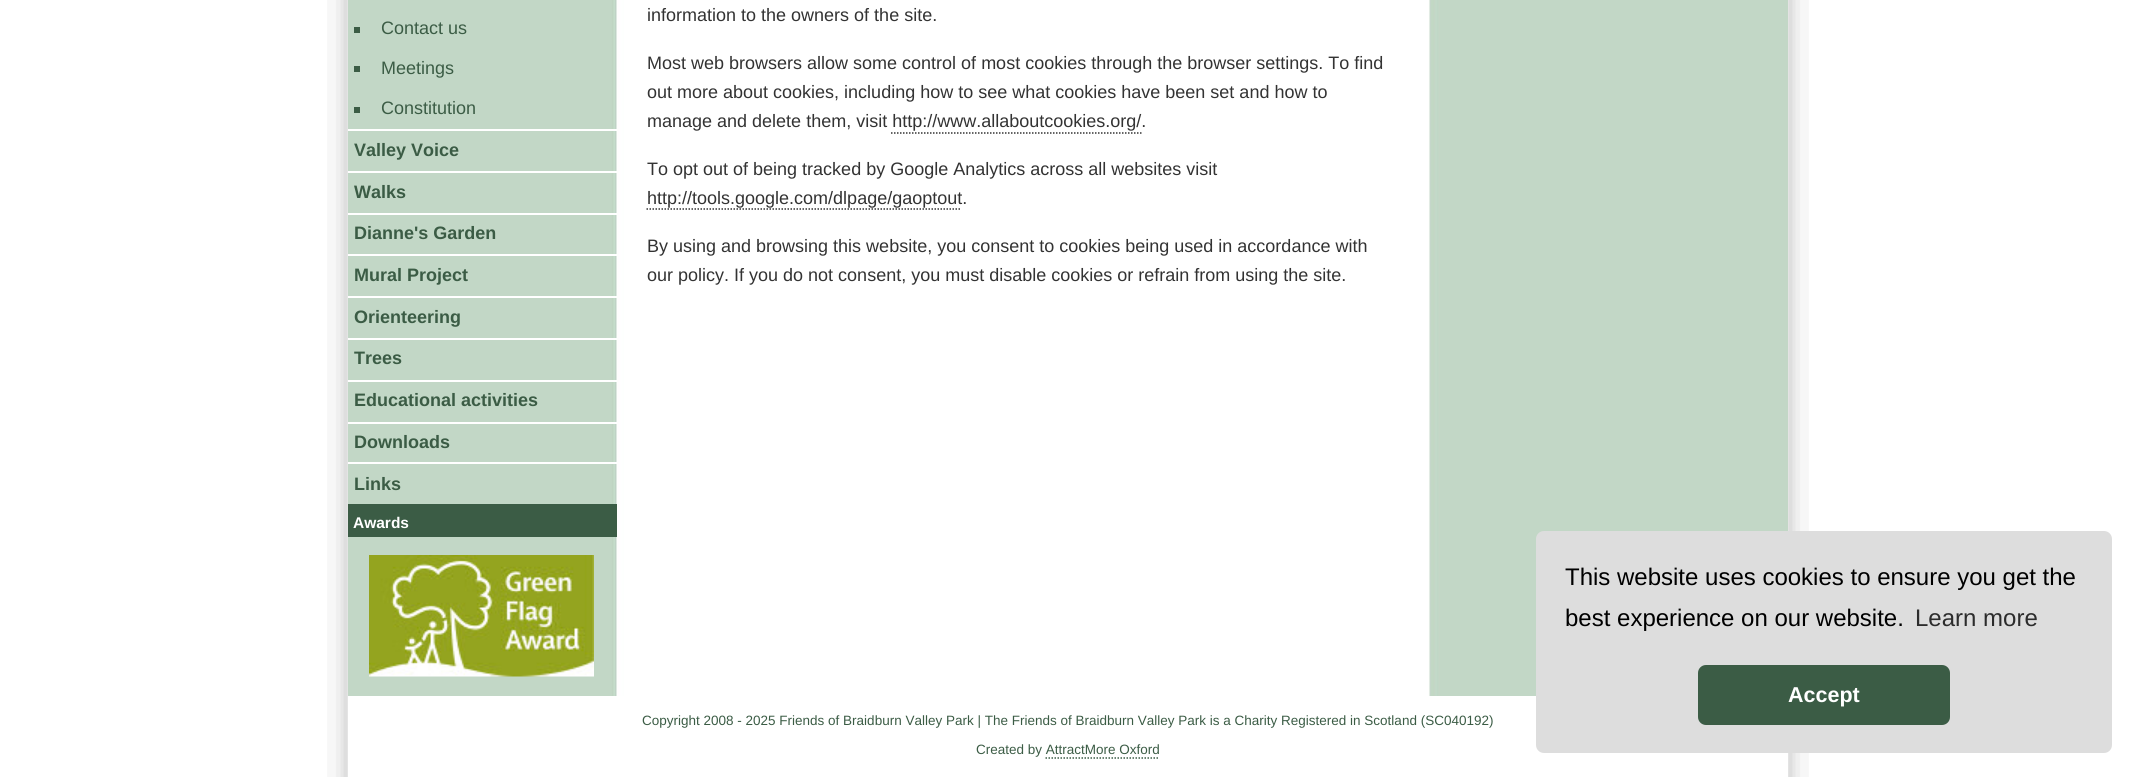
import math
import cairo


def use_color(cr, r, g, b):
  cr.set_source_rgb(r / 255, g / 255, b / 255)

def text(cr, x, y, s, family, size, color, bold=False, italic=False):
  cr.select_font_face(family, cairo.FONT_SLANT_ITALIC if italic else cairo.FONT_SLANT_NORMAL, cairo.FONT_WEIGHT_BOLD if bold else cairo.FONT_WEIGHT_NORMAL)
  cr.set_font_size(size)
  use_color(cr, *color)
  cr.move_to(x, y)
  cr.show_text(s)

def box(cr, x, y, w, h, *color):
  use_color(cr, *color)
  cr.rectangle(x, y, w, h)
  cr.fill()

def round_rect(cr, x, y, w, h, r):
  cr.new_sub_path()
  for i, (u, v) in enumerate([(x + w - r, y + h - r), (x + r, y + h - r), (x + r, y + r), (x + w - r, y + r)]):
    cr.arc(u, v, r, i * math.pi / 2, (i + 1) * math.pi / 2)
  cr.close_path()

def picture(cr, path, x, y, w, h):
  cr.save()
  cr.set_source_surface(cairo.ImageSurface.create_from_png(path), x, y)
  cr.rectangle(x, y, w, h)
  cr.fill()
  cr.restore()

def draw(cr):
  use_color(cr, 255, 255, 255)
  cr.paint()
  picture(cr, "img_01.png", 327, 0, 1482, 777)
  picture(cr, "img_02.png", 348, 0, 1440, 696)
  box(cr, 354, 27, 6, 6, 59, 92, 69)
  box(cr, 354, 66, 6, 6, 59, 92, 69)
  box(cr, 354, 107, 6, 6, 59, 92, 69)
  box(cr, 348, 129, 269, 2, 255, 255, 255)
  box(cr, 348, 171, 269, 2, 255, 255, 255)
  box(cr, 348, 213, 269, 2, 255, 255, 255)
  box(cr, 348, 254, 269, 2, 255, 255, 255)
  box(cr, 348, 296, 269, 2, 255, 255, 255)
  box(cr, 348, 338, 269, 2, 255, 255, 255)
  box(cr, 348, 380, 269, 2, 255, 255, 255)
  box(cr, 348, 422, 269, 2, 255, 255, 255)
  box(cr, 348, 462, 269, 2, 255, 255, 255)
  box(cr, 348, 504, 269, 33, 59, 92, 69)
  picture(cr, "img_03.png", 369, 555, 225, 122)
  cr.new_path()
  cr.move_to(891, 133)
  cr.line_to(1141.5, 133)
  use_color(cr, 51, 51, 51)
  cr.set_line_width(1.5)
  cr.set_dash([1.5, 1.5])
  cr.stroke()
  cr.new_path()
  cr.move_to(646.5, 209)
  cr.line_to(961.5, 209)
  cr.stroke()
  box(cr, 348, 696, 1440, 81, 255, 255, 255)
  cr.new_path()
  cr.move_to(1045.5, 758)
  cr.line_to(1159.5, 758)
  use_color(cr, 59, 92, 69)
  cr.stroke()
  use_color(cr, 221, 221, 221)
  round_rect(cr, 1536, 531, 576, 222, 8)
  cr.fill()
  use_color(cr, 59, 92, 69)
  round_rect(cr, 1698, 665, 252, 60, 8)
  cr.fill()
  text(cr, 381, 34, "Contact us", "Liberation Sans", 18, (59, 92, 69))
  text(cr, 381, 74, "Meetings", "Liberation Sans", 18, (59, 92, 69))
  text(cr, 381, 114, "Constitution", "Liberation Sans", 18, (59, 92, 69))
  text(cr, 354, 156, "Valley Voice", "Liberation Sans", 18, (59, 92, 69), bold=True)
  text(cr, 354, 198, "Walks", "Liberation Sans", 18, (59, 92, 69), bold=True)
  text(cr, 354, 239, "Dianne's Garden", "Liberation Sans", 18, (59, 92, 69), bold=True)
  text(cr, 354, 281, "Mural Project", "Liberation Sans", 18, (59, 92, 69), bold=True)
  text(cr, 354, 323, "Orienteering", "Liberation Sans", 18, (59, 92, 69), bold=True)
  text(cr, 354, 364, "Trees", "Liberation Sans", 18, (59, 92, 69), bold=True)
  text(cr, 354, 406, "Educational activities", "Liberation Sans", 18, (59, 92, 69), bold=True)
  text(cr, 354, 448, "Downloads", "Liberation Sans", 18, (59, 92, 69), bold=True)
  text(cr, 354, 490, "Links", "Liberation Sans", 18, (59, 92, 69), bold=True)
  text(cr, 353, 528, "Awards", "Liberation Sans", 15.5, (255, 255, 255), bold=True)
  text(cr, 647, 21, "information to the owners of the site.", "Liberation Sans", 18, (51, 51, 51))
  text(cr, 647, 69, "Most web browsers allow some control of most cookies through the browser settings. To find", "Liberation Sans", 18, (51, 51, 51))
  text(cr, 647, 98, "out more about cookies, including how to see what cookies have been set and how to", "Liberation Sans", 18, (51, 51, 51))
  text(cr, 647, 127, "manage and delete them, visit http://www.allaboutcookies.org/.", "Liberation Sans", 18, (51, 51, 51))
  text(cr, 647, 175, "To opt out of being tracked by Google Analytics across all websites visit", "Liberation Sans", 18, (51, 51, 51))
  text(cr, 647, 204, "http://tools.google.com/dlpage/gaoptout.", "Liberation Sans", 18, (51, 51, 51))
  text(cr, 647, 252, "By using and browsing this website, you consent to cookies being used in accordance with", "Liberation Sans", 18, (51, 51, 51))
  text(cr, 647, 281, "our policy. If you do not consent, you must disable cookies or refrain from using the site.", "Liberation Sans", 18, (51, 51, 51))
  text(cr, 642, 725, "Copyright 2008 - 2025 Friends of Braidburn Valley Park | The Friends of Braidburn Valley Park is a Charity Registered in Scotland (SC040192)", "Liberation Sans", 13.5, (59, 92, 69))
  text(cr, 976, 754, "Created by AttractMore Oxford", "Liberation Sans", 13.5, (59, 92, 69))
  text(cr, 1565, 585, "This website uses cookies to ensure you get the", "Liberation Sans", 24, (0, 0, 0))
  text(cr, 1565, 626, "best experience on our website.", "Liberation Sans", 24, (0, 0, 0))
  text(cr, 1915, 626, "Learn more", "Liberation Sans", 24, (44, 44, 44))
  text(cr, 1788, 702, "Accept", "Liberation Sans", 21.5, (255, 255, 255), bold=True)


surface = cairo.ImageSurface(cairo.FORMAT_RGB24, 2136, 777)
cr = cairo.Context(surface)
options = cairo.FontOptions()
options.set_hint_metrics(cairo.HINT_METRICS_OFF)
options.set_hint_style(cairo.HINT_STYLE_NONE)
cr.set_font_options(options)
cr.set_miter_limit(4)
draw(cr)
surface.write_to_png("out.png")
